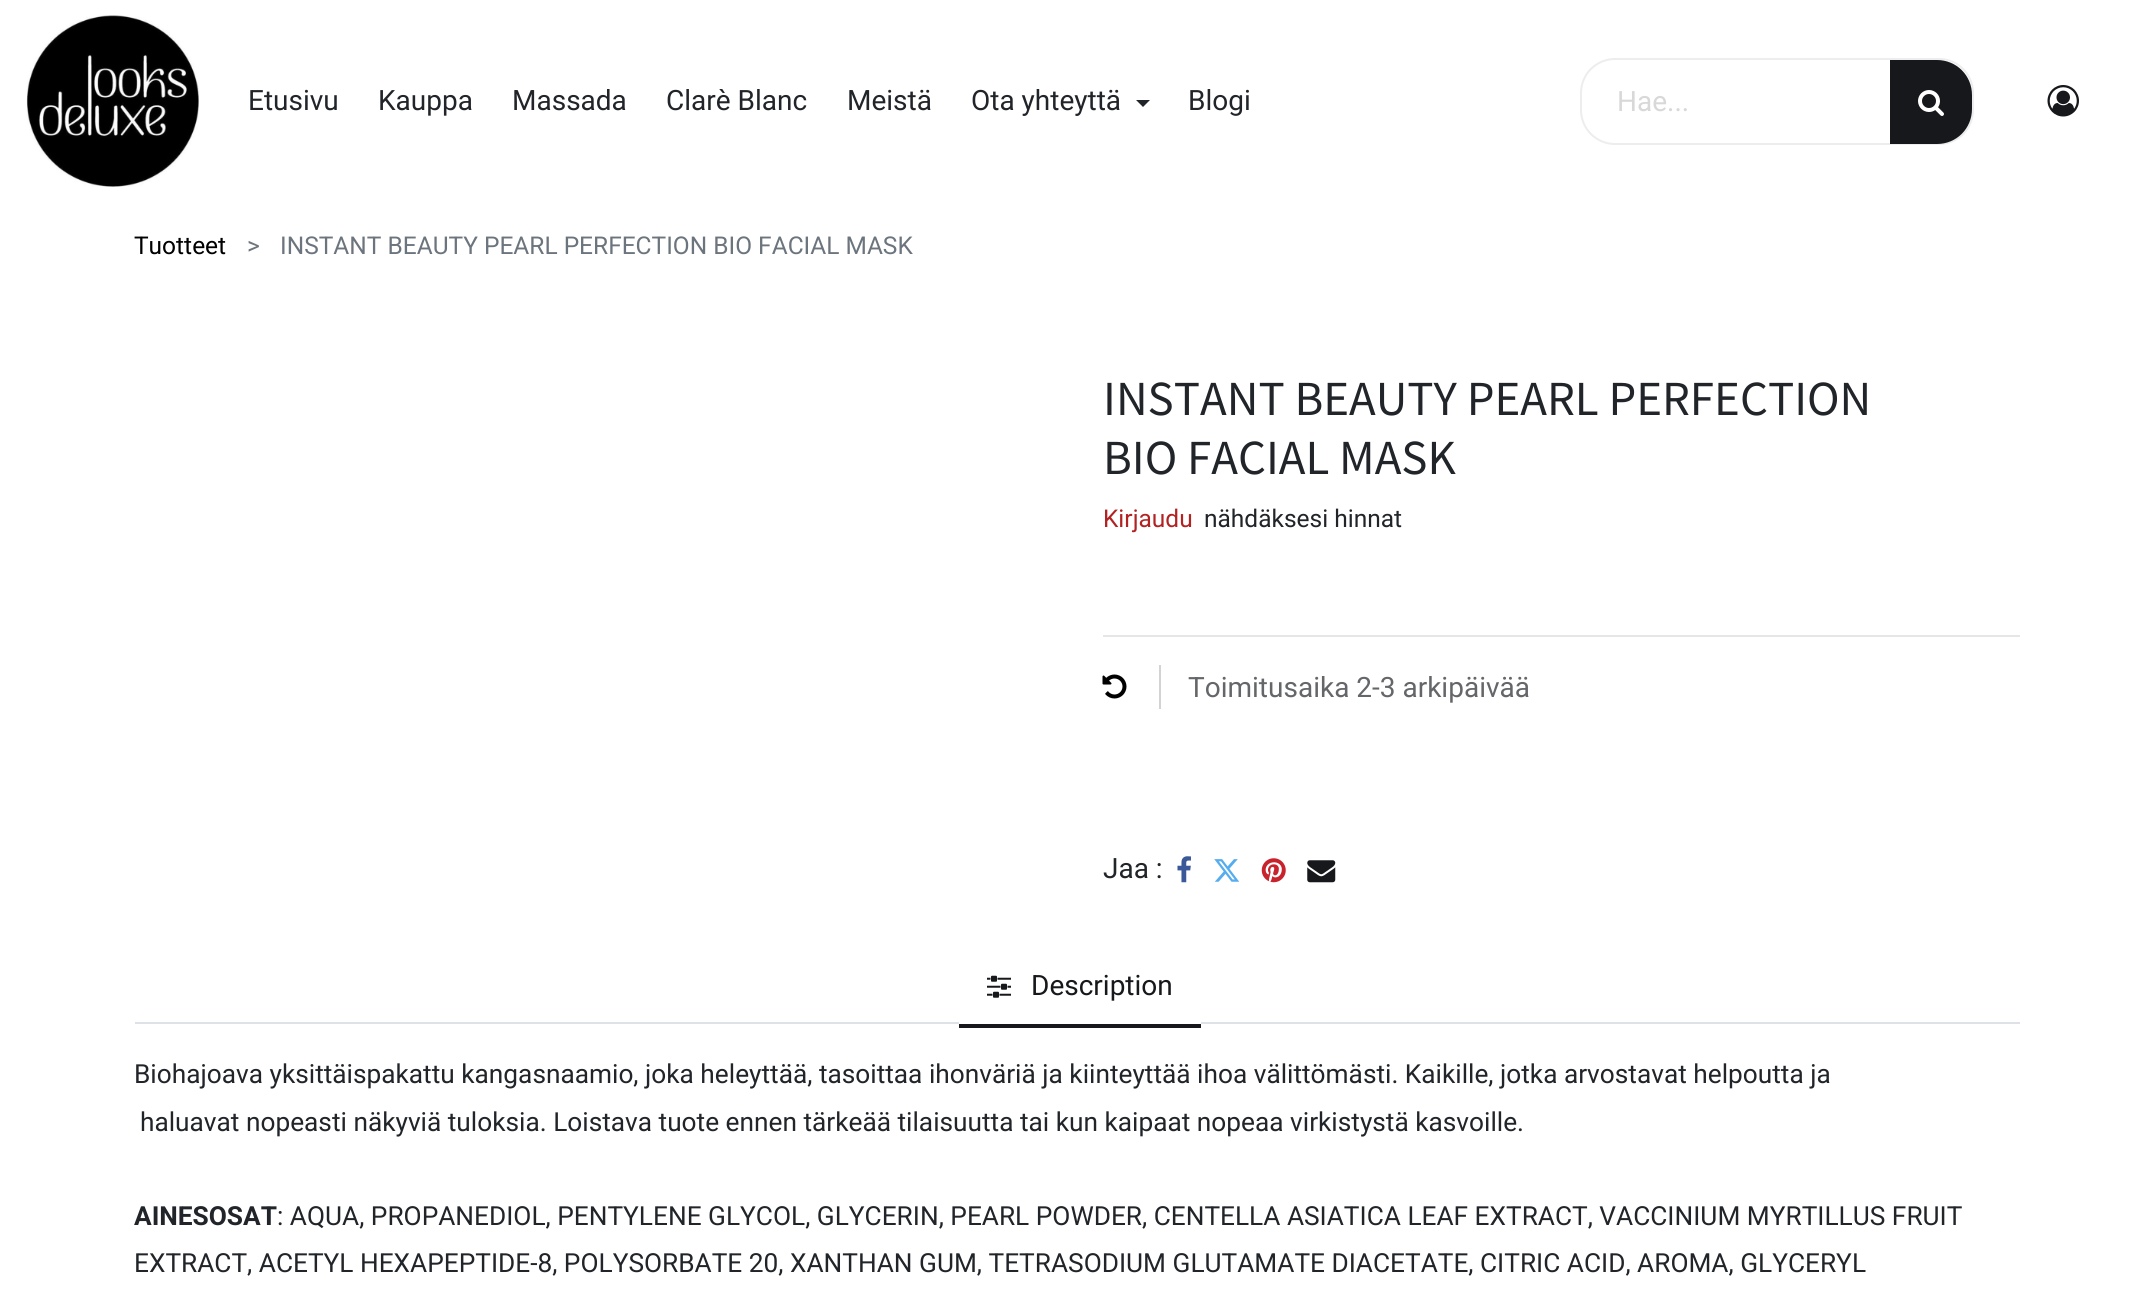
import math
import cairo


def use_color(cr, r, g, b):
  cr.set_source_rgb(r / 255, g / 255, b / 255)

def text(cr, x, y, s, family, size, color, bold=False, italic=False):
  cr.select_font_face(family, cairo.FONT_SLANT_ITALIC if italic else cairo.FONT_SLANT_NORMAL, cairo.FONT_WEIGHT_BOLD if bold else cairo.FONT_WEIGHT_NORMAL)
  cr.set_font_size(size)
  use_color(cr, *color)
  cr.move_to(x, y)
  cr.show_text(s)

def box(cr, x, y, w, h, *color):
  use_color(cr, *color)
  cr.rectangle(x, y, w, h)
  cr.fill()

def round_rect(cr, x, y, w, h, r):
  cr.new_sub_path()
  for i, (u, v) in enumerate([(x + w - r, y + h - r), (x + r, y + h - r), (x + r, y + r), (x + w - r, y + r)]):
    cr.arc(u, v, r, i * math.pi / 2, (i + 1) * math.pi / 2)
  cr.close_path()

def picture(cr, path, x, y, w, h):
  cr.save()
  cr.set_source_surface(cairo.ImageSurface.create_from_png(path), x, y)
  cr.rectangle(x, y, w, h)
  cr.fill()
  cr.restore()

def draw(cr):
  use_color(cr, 255, 255, 255)
  cr.paint()
  picture(cr, "img_01.png", 26, 15, 173, 172)
  use_color(cr, 33, 37, 41)
  cr.new_path()
  cr.move_to(1136, 100)
  cr.line_to(1150, 100)
  cr.line_to(1143, 107)
  cr.close_path()
  cr.fill()
  round_rect(cr, 1581, 59, 392, 85, 34)
  use_color(cr, 237, 237, 237)
  cr.stroke()
  use_color(cr, 22, 24, 27)
  cr.new_path()
  cr.move_to(1890, 60)
  cr.line_to(1937, 60)
  cr.curve_to(1956.5, 60, 1972, 75.5, 1972, 95)
  cr.line_to(1972, 109)
  cr.curve_to(1972, 128.5, 1956.5, 144, 1937, 144)
  cr.line_to(1890, 144)
  cr.close_path()
  cr.fill()
  picture(cr, "img_02.png", 1918, 90, 26, 26)
  picture(cr, "img_03.png", 2047, 85, 32, 32)
  box(cr, 1103, 635, 917, 2, 230, 230, 230)
  box(cr, 1159, 665, 2, 44, 211, 211, 211)
  picture(cr, "img_04.png", 1102, 674, 25, 25)
  picture(cr, "img_05.png", 1177, 856, 14, 27)
  picture(cr, "img_06.png", 1214, 859, 26, 23)
  picture(cr, "img_07.png", 1261, 858, 25, 25)
  picture(cr, "img_08.png", 1307, 860, 29, 23)
  box(cr, 135, 1022, 1885, 2, 222, 226, 230)
  box(cr, 959, 1022, 242, 2, 255, 255, 255)
  box(cr, 959, 1024, 242, 4, 22, 24, 27)
  picture(cr, "img_09.png", 987, 975, 24, 23)
  text(cr, 248, 110, "Etusivu", "Roboto", 28, (33, 37, 41))
  text(cr, 378, 110, "Kauppa", "Roboto", 28, (33, 37, 41))
  text(cr, 512, 110, "Massada", "Roboto", 28, (33, 37, 41))
  text(cr, 666, 110, "Clarè Blanc", "Roboto", 28, (33, 37, 41))
  text(cr, 847, 110, "Meistä", "Roboto", 28, (33, 37, 41))
  text(cr, 971, 110, "Ota yhteyttä", "Roboto", 28, (33, 37, 41))
  text(cr, 1188, 110, "Blogi", "Roboto", 28, (33, 37, 41))
  text(cr, 1617, 111, "Hae...", "Roboto", 28, (216, 216, 216))
  text(cr, 134, 254, "Tuotteet", "Roboto", 24.5, (0, 0, 0))
  text(cr, 247, 254, ">", "Roboto", 24.5, (108, 117, 125))
  text(cr, 280, 254, "INSTANT BEAUTY PEARL PERFECTION BIO FACIAL MASK", "Roboto", 24.5, (108, 117, 125))
  text(cr, 1103, 415, "INSTANT BEAUTY PEARL PERFECTION", "Source Sans Pro", 49, (33, 37, 41))
  text(cr, 1103, 474, "BIO FACIAL MASK", "Source Sans Pro", 49, (33, 37, 41))
  text(cr, 1103, 527, "Kirjaudu", "Roboto", 24.5, (178, 34, 34))
  text(cr, 1204, 527, "nähdäksesi hinnat", "Roboto", 24.5, (33, 37, 41))
  text(cr, 1188, 697, "Toimitusaika 2-3 arkipäivää", "Roboto", 28, (100, 102, 105))
  text(cr, 1103, 878, "Jaa :", "Roboto", 28, (33, 37, 41))
  text(cr, 1031, 995, "Description", "Roboto", 28, (22, 24, 27))
  text(cr, 134, 1083, "Biohajoava yksittäispakattu kangasnaamio, joka heleyttää, tasoittaa ihonväriä ja kiinteyttää ihoa välittömästi. Kaikille, jotka arvostavat helpoutta ja", "Roboto", 26.25, (33, 37, 41))
  text(cr, 140, 1131, "haluavat nopeasti näkyviä tuloksia. Loistava tuote ennen tärkeää tilaisuutta tai kun kaipaat nopeaa virkistystä kasvoille.", "Roboto", 26.25, (33, 37, 41))
  text(cr, 134, 1225, "AINESOSAT", "Roboto", 26.25, (33, 37, 41), bold=True)
  text(cr, 277, 1225, ": AQUA, PROPANEDIOL, PENTYLENE GLYCOL, GLYCERIN, PEARL POWDER, CENTELLA ASIATICA LEAF EXTRACT, VACCINIUM MYRTILLUS FRUIT", "Roboto", 26.25, (33, 37, 41))
  text(cr, 134, 1272, "EXTRACT, ACETYL HEXAPEPTIDE-8, POLYSORBATE 20, XANTHAN GUM, TETRASODIUM GLUTAMATE DIACETATE, CITRIC ACID, AROMA, GLYCERYL", "Roboto", 26.25, (33, 37, 41))


surface = cairo.ImageSurface(cairo.FORMAT_RGB24, 2152, 1304)
cr = cairo.Context(surface)
options = cairo.FontOptions()
options.set_hint_metrics(cairo.HINT_METRICS_OFF)
options.set_hint_style(cairo.HINT_STYLE_NONE)
cr.set_font_options(options)
cr.set_miter_limit(4)
draw(cr)
surface.write_to_png("out.png")
